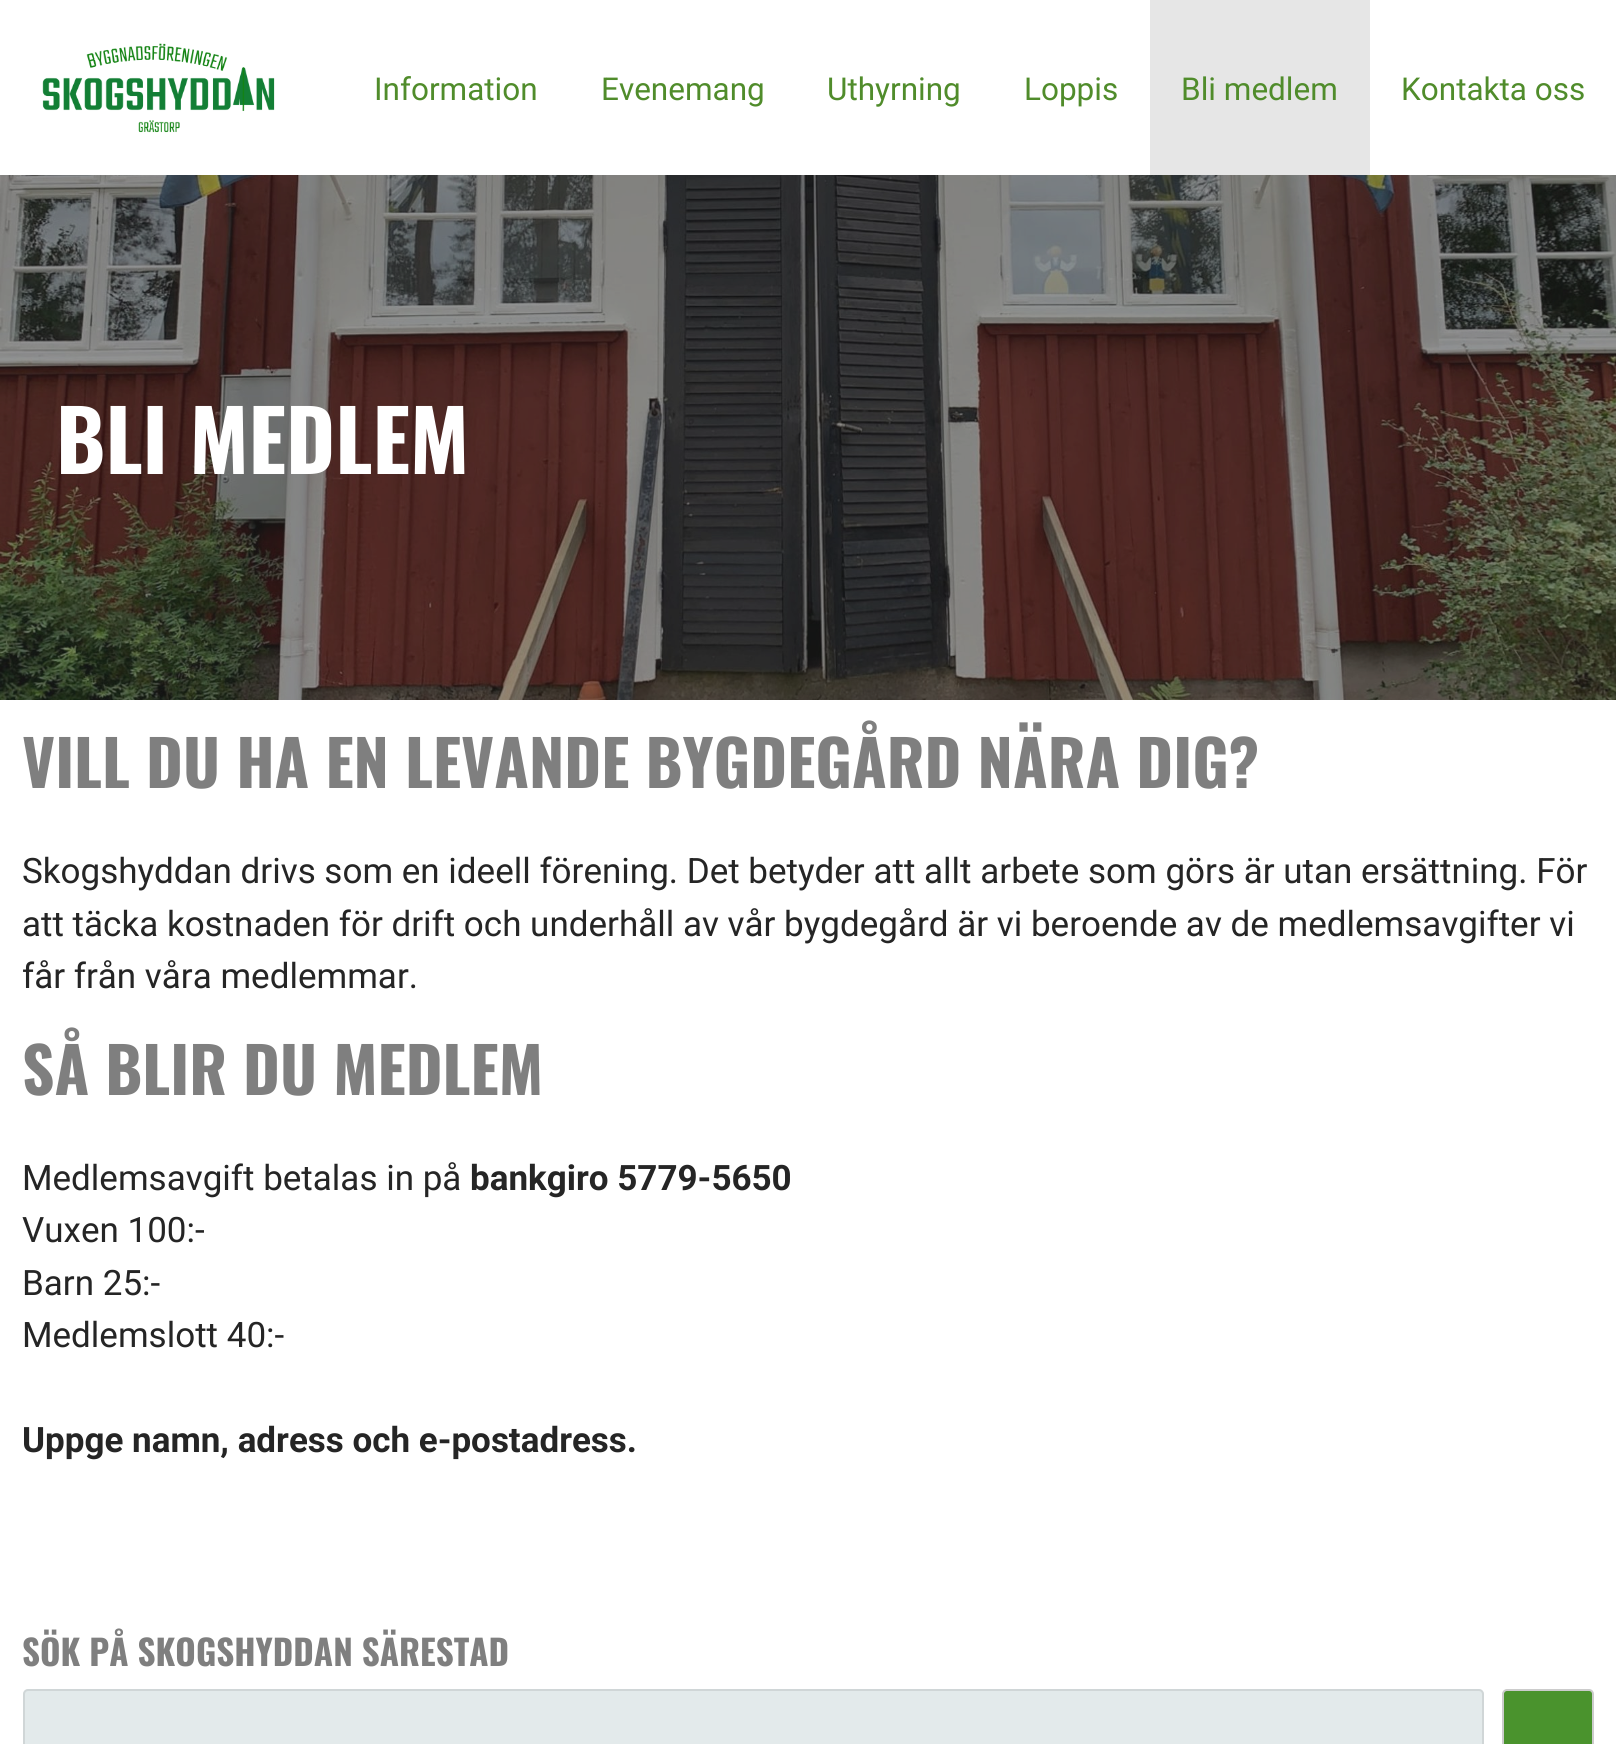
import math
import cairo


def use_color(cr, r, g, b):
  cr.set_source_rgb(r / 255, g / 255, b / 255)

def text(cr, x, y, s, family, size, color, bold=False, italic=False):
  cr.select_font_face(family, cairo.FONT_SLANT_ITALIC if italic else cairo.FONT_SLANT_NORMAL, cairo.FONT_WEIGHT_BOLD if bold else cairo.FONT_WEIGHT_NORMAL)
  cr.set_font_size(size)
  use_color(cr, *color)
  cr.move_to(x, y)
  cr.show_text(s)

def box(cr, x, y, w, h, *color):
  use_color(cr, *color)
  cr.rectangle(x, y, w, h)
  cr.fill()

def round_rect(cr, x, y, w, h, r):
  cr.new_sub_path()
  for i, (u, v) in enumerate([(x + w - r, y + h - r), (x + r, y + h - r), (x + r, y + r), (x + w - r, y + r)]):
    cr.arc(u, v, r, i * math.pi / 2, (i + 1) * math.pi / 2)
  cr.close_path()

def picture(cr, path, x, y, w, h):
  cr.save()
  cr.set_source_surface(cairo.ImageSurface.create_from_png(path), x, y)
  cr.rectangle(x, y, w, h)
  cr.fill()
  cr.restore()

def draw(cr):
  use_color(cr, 255, 255, 255)
  cr.paint()
  picture(cr, "img_01.png", 42, 43, 233, 90)
  box(cr, 1150, 0, 220, 175, 230, 230, 230)
  picture(cr, "img_02.png", 0, 175, 1616, 525)
  use_color(cr, 227, 234, 235)
  round_rect(cr, 23, 1689, 1461, 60, 5)
  cr.fill()
  round_rect(cr, 24, 1690, 1459, 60, 4)
  cr.set_source_rgba(0.145, 0.145, 0.145, 0.1)
  cr.stroke()
  use_color(cr, 74, 147, 45)
  round_rect(cr, 1503, 1690, 90, 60, 4)
  cr.fill_preserve()
  use_color(cr, 204, 204, 204)
  cr.stroke()
  text(cr, 374, 100, "Information", "Roboto", 31.5, (80, 140, 43))
  text(cr, 601, 100, "Evenemang", "Roboto", 31.5, (80, 140, 43))
  text(cr, 827, 100, "Uthyrning", "Roboto", 31.5, (80, 140, 43))
  text(cr, 1024, 100, "Loppis", "Roboto", 31.5, (80, 140, 43))
  text(cr, 1181, 100, "Bli medlem", "Roboto", 31.5, (80, 140, 43))
  text(cr, 1401, 100, "Kontakta oss", "Roboto", 31.5, (80, 140, 43))
  text(cr, 56, 474, "BLI MEDLEM", "Oswald", 84, (255, 255, 255), bold=True)
  text(cr, 22, 788, "VILL DU HA EN LEVANDE BYGDEGÅRD NÄRA DIG?", "Oswald", 63, (127, 127, 127), bold=True)
  text(cr, 22, 883, "Skogshyddan drivs som en ideell förening. Det betyder att allt arbete som görs är utan ersättning. För", "Roboto", 35, (37, 37, 37))
  text(cr, 22, 936, "att täcka kostnaden för drift och underhåll av vår bygdegård är vi beroende av de medlemsavgifter vi", "Roboto", 35, (37, 37, 37))
  text(cr, 22, 988, "får från våra medlemmar.", "Roboto", 35, (37, 37, 37))
  text(cr, 22, 1095, "SÅ BLIR DU MEDLEM", "Oswald", 63, (127, 127, 127), bold=True)
  text(cr, 22, 1190, "Medlemsavgift betalas in på", "Roboto", 35, (37, 37, 37))
  text(cr, 470, 1190, "bankgiro 5779-5650", "Roboto", 35, (37, 37, 37), bold=True)
  text(cr, 22, 1242, "Vuxen 100:-", "Roboto", 35, (37, 37, 37))
  text(cr, 22, 1295, "Barn 25:-", "Roboto", 35, (37, 37, 37))
  text(cr, 22, 1347, "Medlemslott 40:-", "Roboto", 35, (37, 37, 37))
  text(cr, 22, 1452, "Uppge namn, adress och e-postadress.", "Roboto", 35, (37, 37, 37), bold=True)
  text(cr, 22, 1666, "SÖK PÅ SKOGSHYDDAN SÄRESTAD", "Oswald", 35, (127, 127, 127), bold=True)


surface = cairo.ImageSurface(cairo.FORMAT_RGB24, 1616, 1744)
cr = cairo.Context(surface)
options = cairo.FontOptions()
options.set_hint_metrics(cairo.HINT_METRICS_OFF)
options.set_hint_style(cairo.HINT_STYLE_NONE)
cr.set_font_options(options)
cr.set_miter_limit(4)
draw(cr)
surface.write_to_png("out.png")
